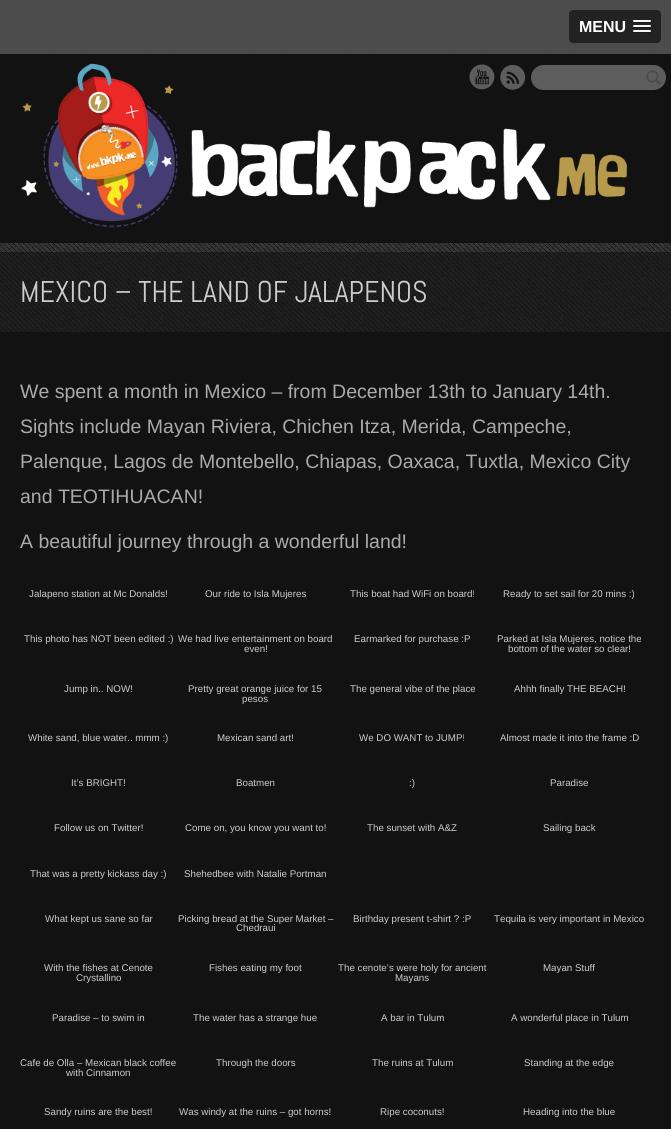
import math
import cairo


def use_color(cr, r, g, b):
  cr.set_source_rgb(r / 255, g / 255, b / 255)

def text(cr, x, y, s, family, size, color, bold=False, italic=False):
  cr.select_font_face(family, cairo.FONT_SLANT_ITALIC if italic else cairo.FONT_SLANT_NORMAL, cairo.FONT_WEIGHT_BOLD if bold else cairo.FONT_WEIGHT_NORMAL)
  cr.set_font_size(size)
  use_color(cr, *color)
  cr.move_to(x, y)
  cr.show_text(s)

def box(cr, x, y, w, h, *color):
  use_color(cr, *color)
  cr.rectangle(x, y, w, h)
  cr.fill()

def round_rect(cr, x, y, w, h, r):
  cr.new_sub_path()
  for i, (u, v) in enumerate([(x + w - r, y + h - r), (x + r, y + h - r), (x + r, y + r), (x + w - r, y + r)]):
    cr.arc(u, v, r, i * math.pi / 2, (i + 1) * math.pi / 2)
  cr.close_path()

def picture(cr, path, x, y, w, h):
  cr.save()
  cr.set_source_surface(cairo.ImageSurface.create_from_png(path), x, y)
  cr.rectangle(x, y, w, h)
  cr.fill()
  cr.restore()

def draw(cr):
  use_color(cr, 255, 255, 255)
  cr.paint()
  picture(cr, "img_01.png", 0, 54, 671, 1075)
  box(cr, 0, 0, 671, 54, 76, 76, 76)
  use_color(cr, 34, 34, 34)
  round_rect(cr, 569, 10, 92, 33, 4)
  cr.fill()
  use_color(cr, 26, 26, 26)
  cr.new_path()
  cr.move_to(633, 21.5)
  cr.curve_to(632, 23.5, 636.5, 23, 636.5, 23)
  cr.line_to(647.5, 23)
  cr.curve_to(647.5, 23, 652, 23.5, 651, 21.5)
  cr.curve_to(650, 22.5, 643.5, 22, 642, 22)
  cr.curve_to(640.5, 22, 634, 22.5, 633, 21.5)
  cr.close_path()
  cr.fill()
  use_color(cr, 245, 245, 245)
  round_rect(cr, 633, 20, 18, 2, 1)
  cr.fill()
  use_color(cr, 26, 26, 26)
  cr.new_path()
  cr.move_to(633, 26.5)
  cr.curve_to(632, 28.5, 636.5, 28, 636.5, 28)
  cr.line_to(647.5, 28)
  cr.curve_to(647.5, 28, 652, 28.5, 651, 26.5)
  cr.curve_to(650, 27.5, 643.5, 27, 642, 27)
  cr.curve_to(640.5, 27, 634, 27.5, 633, 26.5)
  cr.close_path()
  cr.fill()
  use_color(cr, 245, 245, 245)
  round_rect(cr, 633, 25, 18, 2, 1)
  cr.fill()
  use_color(cr, 26, 26, 26)
  cr.new_path()
  cr.move_to(633, 31.5)
  cr.curve_to(632, 33.5, 636.5, 33, 636.5, 33)
  cr.line_to(647.5, 33)
  cr.curve_to(647.5, 33, 652, 33.5, 651, 31.5)
  cr.curve_to(650, 32.5, 643.5, 32, 642, 32)
  cr.curve_to(640.5, 32, 634, 32.5, 633, 31.5)
  cr.close_path()
  cr.fill()
  use_color(cr, 245, 245, 245)
  round_rect(cr, 633, 30, 18, 2, 1)
  cr.fill()
  cr.set_source_rgba(0.067, 0.067, 0.067, 0.95)
  cr.rectangle(0, 54, 671, 189)
  cr.fill()
  picture(cr, "img_02.png", 21, 63, 607, 165)
  picture(cr, "img_03.png", 469, 64, 26, 26)
  picture(cr, "img_04.png", 500, 64, 26, 26)
  use_color(cr, 93, 93, 93)
  round_rect(cr, 531, 65, 135, 25, 12.5)
  cr.fill()
  picture(cr, "img_05.png", 646, 70, 15, 15)
  cr.set_source_rgba(0.067, 0.067, 0.067, 0.6)
  cr.rectangle(0, 252, 671, 80)
  cr.fill()
  cr.set_source_rgba(0.067, 0.067, 0.067, 0.95)
  cr.rectangle(0, 332, 671, 797)
  cr.fill()
  text(cr, 579, 32, "MENU", "Liberation Sans", 16, (255, 255, 255), bold=True)
  text(cr, 20, 302, "MEXICO – THE LAND OF JALAPENOS", "Abel", 30, (204, 204, 204))
  text(cr, 20, 398, "We spent a month in Mexico – from December 13th to January 14th.", "Liberation Sans", 19.5, (170, 170, 170))
  text(cr, 20, 433, "Sights include Mayan Riviera, Chichen Itza, Merida, Campeche,", "Liberation Sans", 19.5, (170, 170, 170))
  text(cr, 20, 468, "Palenque, Lagos de Montebello, Chiapas, Oaxaca, Tuxtla, Mexico City", "Liberation Sans", 19.5, (170, 170, 170))
  text(cr, 20, 503, "and TEOTIHUACAN!", "Liberation Sans", 19.5, (170, 170, 170))
  text(cr, 20, 548, "A beautiful journey through a wonderful land!", "Liberation Sans", 19.5, (170, 170, 170))
  text(cr, 29, 597, "Jalapeno station at Mc Donalds!", "Liberation Sans", 9.75, (204, 204, 204))
  text(cr, 205, 597, "Our ride to Isla Mujeres", "Liberation Sans", 9.75, (204, 204, 204))
  text(cr, 350, 597, "This boat had WiFi on board!", "Liberation Sans", 9.75, (204, 204, 204))
  text(cr, 503, 597, "Ready to set sail for 20 mins :)", "Liberation Sans", 9.75, (204, 204, 204))
  text(cr, 24, 642, "This photo has NOT been edited :)", "Liberation Sans", 9.75, (204, 204, 204))
  text(cr, 178, 642, "We had live entertainment on board", "Liberation Sans", 9.75, (204, 204, 204))
  text(cr, 244, 652, "even!", "Liberation Sans", 9.75, (204, 204, 204))
  text(cr, 354, 642, "Earmarked for purchase :P", "Liberation Sans", 9.75, (204, 204, 204))
  text(cr, 497, 642, "Parked at Isla Mujeres, notice the", "Liberation Sans", 9.75, (204, 204, 204))
  text(cr, 508, 652, "bottom of the water so clear!", "Liberation Sans", 9.75, (204, 204, 204))
  text(cr, 64, 692, "Jump in.. NOW!", "Liberation Sans", 9.75, (204, 204, 204))
  text(cr, 188, 692, "Pretty great orange juice for 15", "Liberation Sans", 9.75, (204, 204, 204))
  text(cr, 242, 702, "pesos", "Liberation Sans", 9.75, (204, 204, 204))
  text(cr, 350, 692, "The general vibe of the place", "Liberation Sans", 9.75, (204, 204, 204))
  text(cr, 514, 692, "Ahhh finally THE BEACH!", "Liberation Sans", 9.75, (204, 204, 204))
  text(cr, 28, 741, "White sand, blue water.. mmm :)", "Liberation Sans", 9.75, (204, 204, 204))
  text(cr, 217, 741, "Mexican sand art!", "Liberation Sans", 9.75, (204, 204, 204))
  text(cr, 359, 741, "We DO WANT to JUMP!", "Liberation Sans", 9.75, (204, 204, 204))
  text(cr, 500, 741, "Almost made it into the frame :D", "Liberation Sans", 9.75, (204, 204, 204))
  text(cr, 71, 786, "It’s BRIGHT!", "Liberation Sans", 9.75, (204, 204, 204))
  text(cr, 236, 786, "Boatmen", "Liberation Sans", 9.75, (204, 204, 204))
  text(cr, 409, 786, ":)", "Liberation Sans", 9.75, (204, 204, 204))
  text(cr, 550, 786, "Paradise", "Liberation Sans", 9.75, (204, 204, 204))
  text(cr, 54, 831, "Follow us on Twitter!", "Liberation Sans", 9.75, (204, 204, 204))
  text(cr, 185, 831, "Come on, you know you want to!", "Liberation Sans", 9.75, (204, 204, 204))
  text(cr, 367, 831, "The sunset with A&Z", "Liberation Sans", 9.75, (204, 204, 204))
  text(cr, 543, 831, "Sailing back", "Liberation Sans", 9.75, (204, 204, 204))
  text(cr, 30, 877, "That was a pretty kickass day :)", "Liberation Sans", 9.75, (204, 204, 204))
  text(cr, 184, 877, "Shehedbee with Natalie Portman", "Liberation Sans", 9.75, (204, 204, 204))
  text(cr, 45, 922, "What kept us sane so far", "Liberation Sans", 9.75, (204, 204, 204))
  text(cr, 178, 922, "Picking bread at the Super Market –", "Liberation Sans", 9.75, (204, 204, 204))
  text(cr, 236, 931, "Chedraui", "Liberation Sans", 9.75, (204, 204, 204))
  text(cr, 353, 922, "Birthday present t-shirt ? :P", "Liberation Sans", 9.75, (204, 204, 204))
  text(cr, 494, 922, "Tequila is very important in Mexico", "Liberation Sans", 9.75, (204, 204, 204))
  text(cr, 44, 971, "With the fishes at Cenote", "Liberation Sans", 9.75, (204, 204, 204))
  text(cr, 76, 981, "Crystallino", "Liberation Sans", 9.75, (204, 204, 204))
  text(cr, 209, 971, "Fishes eating my foot", "Liberation Sans", 9.75, (204, 204, 204))
  text(cr, 338, 971, "The cenote’s were holy for ancient", "Liberation Sans", 9.75, (204, 204, 204))
  text(cr, 395, 981, "Mayans", "Liberation Sans", 9.75, (204, 204, 204))
  text(cr, 543, 971, "Mayan Stuff", "Liberation Sans", 9.75, (204, 204, 204))
  text(cr, 52, 1021, "Paradise – to swim in", "Liberation Sans", 9.75, (204, 204, 204))
  text(cr, 193, 1021, "The water has a strange hue", "Liberation Sans", 9.75, (204, 204, 204))
  text(cr, 381, 1021, "A bar in Tulum", "Liberation Sans", 9.75, (204, 204, 204))
  text(cr, 511, 1021, "A wonderful place in Tulum", "Liberation Sans", 9.75, (204, 204, 204))
  text(cr, 20, 1066, "Cafe de Olla – Mexican black coffee", "Liberation Sans", 9.75, (204, 204, 204))
  text(cr, 66, 1076, "with Cinnamon", "Liberation Sans", 9.75, (204, 204, 204))
  text(cr, 216, 1066, "Through the doors", "Liberation Sans", 9.75, (204, 204, 204))
  text(cr, 372, 1066, "The ruins at Tulum", "Liberation Sans", 9.75, (204, 204, 204))
  text(cr, 524, 1066, "Standing at the edge", "Liberation Sans", 9.75, (204, 204, 204))
  text(cr, 44, 1115, "Sandy ruins are the best!", "Liberation Sans", 9.75, (204, 204, 204))
  text(cr, 179, 1115, "Was windy at the ruins – got horns!", "Liberation Sans", 9.75, (204, 204, 204))
  text(cr, 380, 1115, "Ripe coconuts!", "Liberation Sans", 9.75, (204, 204, 204))
  text(cr, 523, 1115, "Heading into the blue", "Liberation Sans", 9.75, (204, 204, 204))


surface = cairo.ImageSurface(cairo.FORMAT_RGB24, 671, 1129)
cr = cairo.Context(surface)
options = cairo.FontOptions()
options.set_hint_metrics(cairo.HINT_METRICS_OFF)
options.set_hint_style(cairo.HINT_STYLE_NONE)
cr.set_font_options(options)
cr.set_miter_limit(4)
draw(cr)
surface.write_to_png("out.png")
